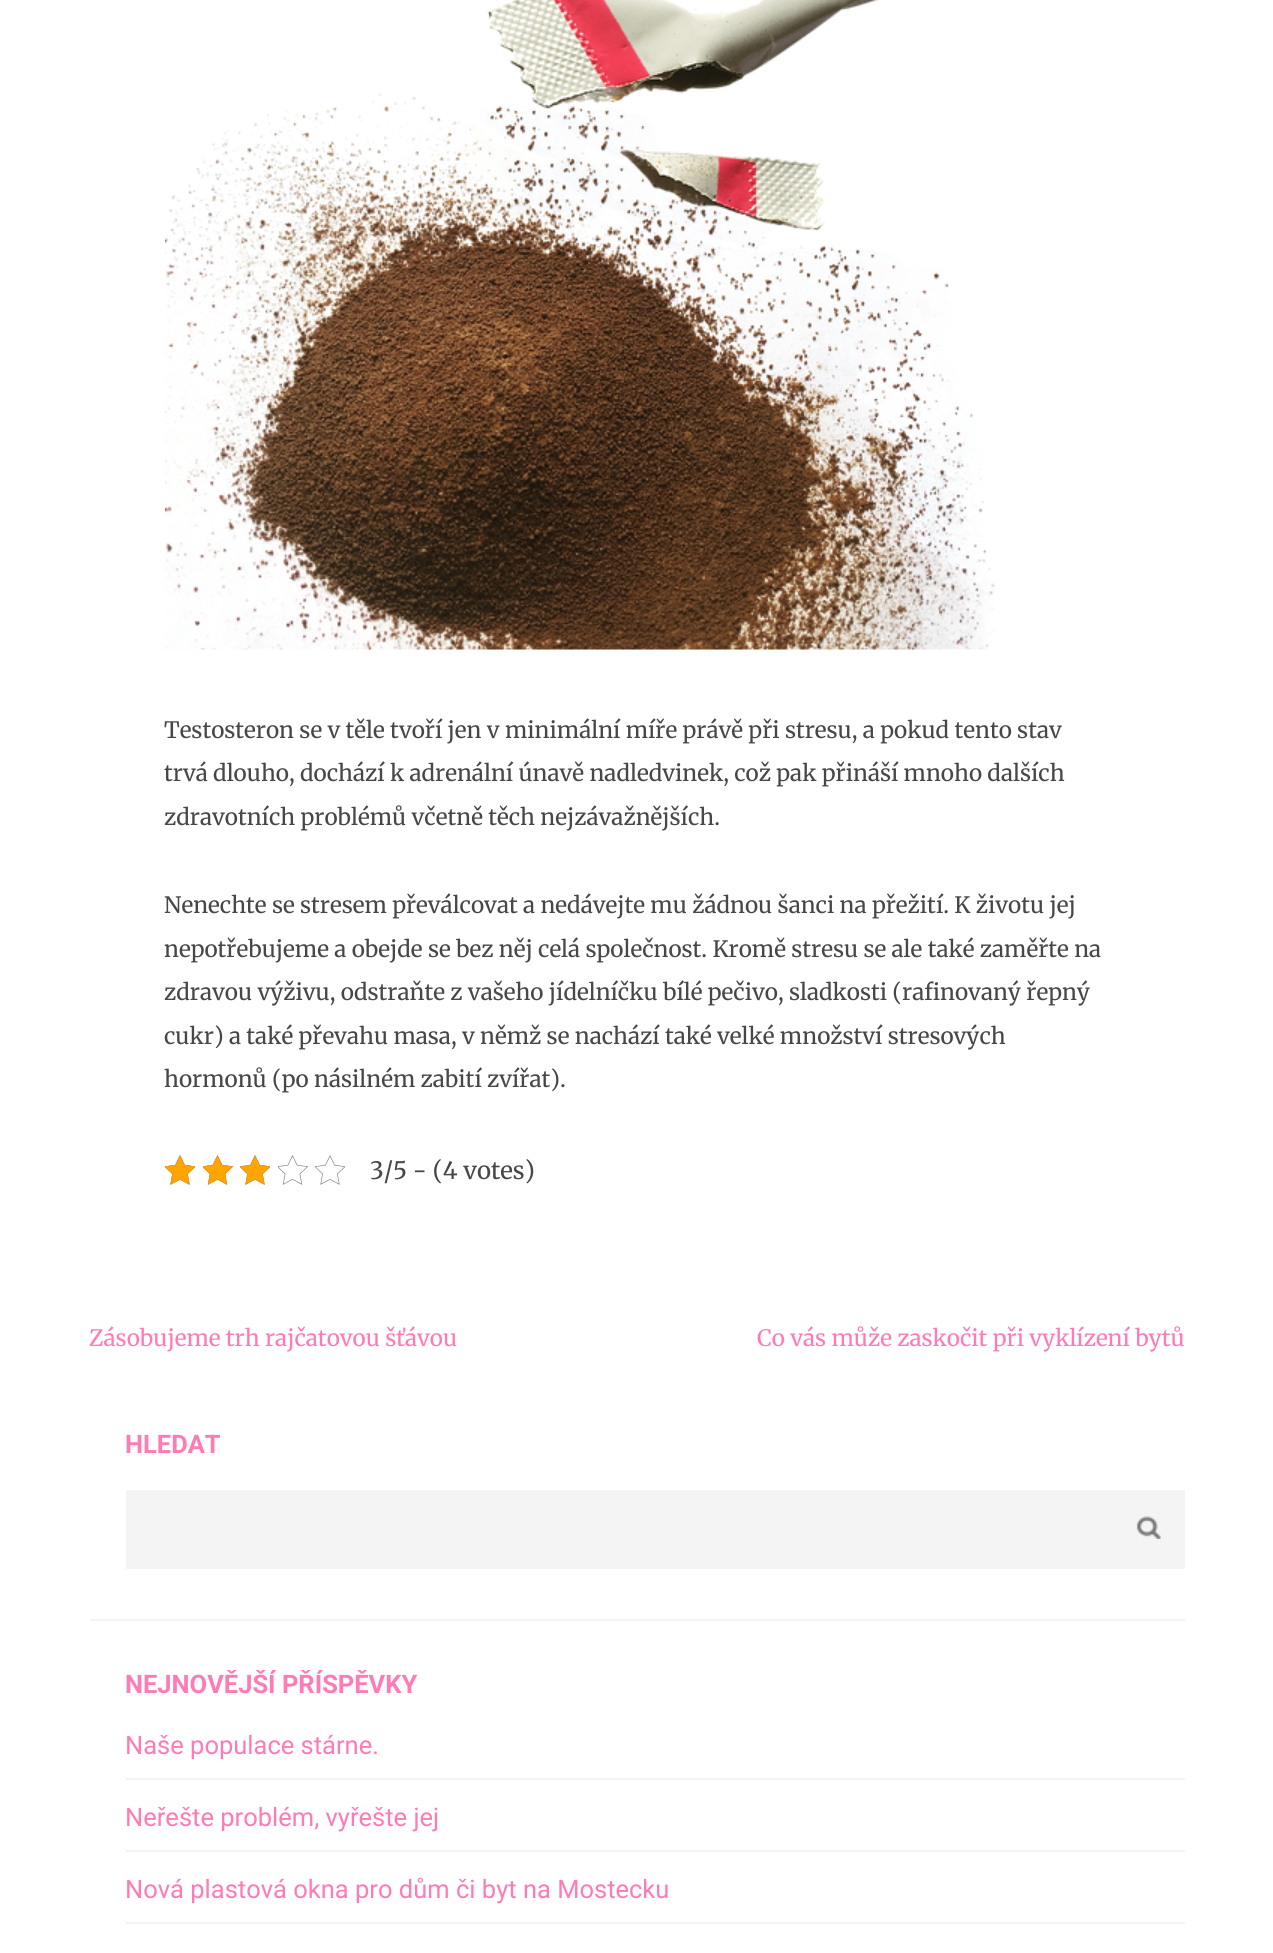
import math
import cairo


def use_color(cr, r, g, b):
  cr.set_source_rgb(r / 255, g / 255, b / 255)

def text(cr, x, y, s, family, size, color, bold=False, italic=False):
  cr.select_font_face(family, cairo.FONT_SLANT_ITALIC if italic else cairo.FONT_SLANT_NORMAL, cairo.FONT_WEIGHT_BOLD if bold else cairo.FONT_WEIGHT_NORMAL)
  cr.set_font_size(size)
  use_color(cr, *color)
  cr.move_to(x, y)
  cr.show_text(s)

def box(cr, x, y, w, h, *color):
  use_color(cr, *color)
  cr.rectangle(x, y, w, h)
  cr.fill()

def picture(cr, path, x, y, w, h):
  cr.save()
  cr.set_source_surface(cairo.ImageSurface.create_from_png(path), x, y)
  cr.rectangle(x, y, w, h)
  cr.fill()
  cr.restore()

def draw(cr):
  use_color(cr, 255, 255, 255)
  cr.paint()
  picture(cr, "img_01.png", 165, 0, 830, 650)
  picture(cr, "img_02.png", 165, 1155, 30, 30)
  picture(cr, "img_03.png", 203, 1155, 30, 30)
  picture(cr, "img_02.png", 240, 1155, 30, 30)
  picture(cr, "img_03.png", 278, 1155, 30, 30)
  picture(cr, "img_02.png", 315, 1155, 30, 30)
  picture(cr, "img_04.png", 165, 1155, 30, 30)
  picture(cr, "img_05.png", 203, 1155, 30, 30)
  picture(cr, "img_04.png", 240, 1155, 30, 30)
  box(cr, 90, 1619, 1095, 2, 244, 242, 243)
  box(cr, 126, 1490, 1059, 79, 244, 244, 244)
  picture(cr, "img_06.png", 1136, 1516, 25, 23)
  box(cr, 126, 1778, 1059, 2, 244, 242, 243)
  box(cr, 126, 1850, 1059, 2, 244, 242, 243)
  box(cr, 126, 1922, 1059, 2, 244, 242, 243)
  text(cr, 164, 738, "Testosteron se v těle tvoří jen v minimální míře právě při stresu, a pokud tento stav", "Merriweather", 22.5, (71, 71, 71))
  text(cr, 164, 781, "trvá dlouho, dochází k adrenální únavě nadledvinek, což pak přináší mnoho dalších", "Merriweather", 22.5, (71, 71, 71))
  text(cr, 164, 825, "zdravotních problémů včetně těch nejzávažnějších.", "Merriweather", 22.5, (71, 71, 71))
  text(cr, 164, 913, "Nenechte se stresem převálcovat a nedávejte mu žádnou šanci na přežití. K životu jej", "Merriweather", 22.5, (71, 71, 71))
  text(cr, 164, 957, "nepotřebujeme a obejde se bez něj celá společnost. Kromě stresu se ale také zaměřte na", "Merriweather", 22.5, (71, 71, 71))
  text(cr, 164, 1000, "zdravou výživu, odstraňte z vašeho jídelníčku bílé pečivo, sladkosti (rafinovaný řepný", "Merriweather", 22.5, (71, 71, 71))
  text(cr, 164, 1044, "cukr) a také převahu masa, v němž se nachází také velké množství stresových", "Merriweather", 22.5, (71, 71, 71))
  text(cr, 164, 1087, "hormonů (po násilném zabití zvířat).", "Merriweather", 22.5, (71, 71, 71))
  text(cr, 370, 1179, "3/5 - (4 votes)", "Merriweather", 24, (71, 71, 71))
  text(cr, 89, 1346, "Zásobujeme trh rajčatovou šťávou", "Merriweather", 22.5, (254, 123, 181))
  text(cr, 757, 1346, "Co vás může zaskočit při vyklízení bytů", "Merriweather", 22.5, (254, 123, 181))
  text(cr, 125, 1453, "HLEDAT", "Roboto", 25.5, (254, 123, 181), bold=True)
  text(cr, 125, 1693, "NEJNOVĚJŠÍ PŘÍSPĚVKY", "Roboto", 25.5, (254, 123, 181), bold=True)
  text(cr, 125, 1754, "Naše populace stárne.", "Roboto", 25.5, (254, 123, 181))
  text(cr, 125, 1826, "Neřešte problém, vyřešte jej", "Roboto", 25.5, (254, 123, 181))
  text(cr, 125, 1898, "Nová plastová okna pro dům či byt na Mostecku", "Roboto", 25.5, (254, 123, 181))


surface = cairo.ImageSurface(cairo.FORMAT_RGB24, 1273, 1953)
cr = cairo.Context(surface)
options = cairo.FontOptions()
options.set_hint_metrics(cairo.HINT_METRICS_OFF)
options.set_hint_style(cairo.HINT_STYLE_NONE)
cr.set_font_options(options)
cr.set_miter_limit(4)
draw(cr)
surface.write_to_png("out.png")
